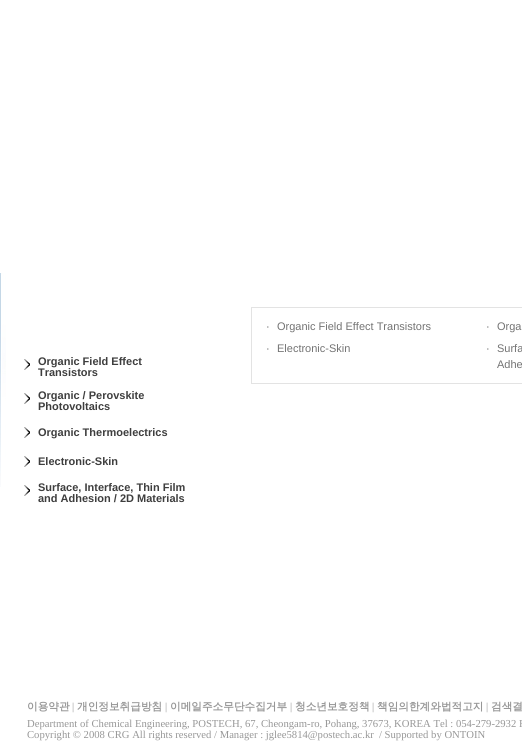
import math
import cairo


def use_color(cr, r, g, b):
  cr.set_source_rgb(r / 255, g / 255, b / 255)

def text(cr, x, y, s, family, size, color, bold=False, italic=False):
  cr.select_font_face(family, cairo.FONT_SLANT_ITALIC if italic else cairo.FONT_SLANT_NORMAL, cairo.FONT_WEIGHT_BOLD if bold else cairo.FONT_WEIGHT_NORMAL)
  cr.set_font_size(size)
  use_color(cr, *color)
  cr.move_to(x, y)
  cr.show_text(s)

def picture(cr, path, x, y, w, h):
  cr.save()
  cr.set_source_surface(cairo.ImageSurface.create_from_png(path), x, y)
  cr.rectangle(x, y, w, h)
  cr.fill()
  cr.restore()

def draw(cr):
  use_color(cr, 255, 255, 255)
  cr.paint()
  picture(cr, "img_01.png", 0, 273, 6, 214)
  cr.rectangle(251.5, 307.5, 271, 76)
  use_color(cr, 227, 227, 227)
  cr.set_line_width(1)
  cr.stroke()
  picture(cr, "img_02.png", 24, 359, 6, 11)
  picture(cr, "img_02.png", 24, 393, 6, 11)
  picture(cr, "img_02.png", 24, 427, 6, 11)
  picture(cr, "img_02.png", 24, 456, 6, 11)
  picture(cr, "img_02.png", 24, 485, 6, 11)
  text(cr, 266, 330, "·", "Liberation Sans", 11, (102, 102, 102))
  text(cr, 277, 330, "Organic Field Effect Transistors", "Liberation Sans", 11, (115, 115, 115))
  text(cr, 486, 330, "·", "Liberation Sans", 11, (102, 102, 102))
  text(cr, 497, 330, "Orga", "Liberation Sans", 11, (115, 115, 115))
  text(cr, 266, 352, "·", "Liberation Sans", 11, (102, 102, 102))
  text(cr, 277, 352, "Electronic-Skin", "Liberation Sans", 11, (115, 115, 115))
  text(cr, 486, 352, "·", "Liberation Sans", 11, (102, 102, 102))
  text(cr, 497, 352, "Surfa", "Liberation Sans", 11, (115, 115, 115))
  text(cr, 497, 368, "Adhe", "Liberation Sans", 11, (115, 115, 115))
  text(cr, 38, 365, "Organic Field Effect", "Liberation Sans", 11, (62, 62, 62), bold=True)
  text(cr, 38, 376, "Transistors", "Liberation Sans", 11, (62, 62, 62), bold=True)
  text(cr, 38, 399, "Organic / Perovskite", "Liberation Sans", 11, (62, 62, 62), bold=True)
  text(cr, 38, 410, "Photovoltaics", "Liberation Sans", 11, (62, 62, 62), bold=True)
  text(cr, 38, 436, "Organic Thermoelectrics", "Liberation Sans", 11, (62, 62, 62), bold=True)
  text(cr, 38, 465, "Electronic-Skin", "Liberation Sans", 11, (62, 62, 62), bold=True)
  text(cr, 38, 491, "Surface, Interface, Thin Film", "Liberation Sans", 11, (62, 62, 62), bold=True)
  text(cr, 38, 502, "and Adhesion / 2D Materials", "Liberation Sans", 11, (62, 62, 62), bold=True)
  text(cr, 27, 710, "이용약관", "WenQuanYi Zen Hei", 10.65, (151, 151, 151), bold=True)
  text(cr, 72, 710, "|", "Liberation Serif", 10.65, (151, 151, 151))
  text(cr, 77, 710, "개인정보취급방침", "WenQuanYi Zen Hei", 10.65, (151, 151, 151), bold=True)
  text(cr, 165, 710, "|", "Liberation Serif", 10.65, (151, 151, 151))
  text(cr, 170, 710, "이메일주소무단수집거부", "WenQuanYi Zen Hei", 10.65, (151, 151, 151), bold=True)
  text(cr, 290, 710, "|", "Liberation Serif", 10.65, (151, 151, 151))
  text(cr, 295, 710, "청소년보호정책", "WenQuanYi Zen Hei", 10.65, (151, 151, 151), bold=True)
  text(cr, 372, 710, "|", "Liberation Serif", 10.65, (151, 151, 151))
  text(cr, 377, 710, "책임의한계와법적고지", "WenQuanYi Zen Hei", 10.65, (151, 151, 151), bold=True)
  text(cr, 486, 710, "|", "Liberation Serif", 10.65, (151, 151, 151))
  text(cr, 491, 710, "검색결", "WenQuanYi Zen Hei", 10.65, (151, 151, 151), bold=True)
  text(cr, 27, 727, "Department of Chemical Engineering, POSTECH, 67, Cheongam-ro, Pohang, 37673, KOREA Tel : 054-279-2932 F", "Liberation Serif", 10.65, (151, 151, 151))
  text(cr, 27, 738, "Copyright © 2008 CRG All rights reserved / Manager : jglee5814@postech.ac.kr", "Liberation Serif", 10.65, (151, 151, 151))
  text(cr, 379, 738, "/ Supported by ONTOIN", "Liberation Serif", 10.65, (151, 151, 151))


surface = cairo.ImageSurface(cairo.FORMAT_RGB24, 522, 743)
cr = cairo.Context(surface)
options = cairo.FontOptions()
options.set_hint_metrics(cairo.HINT_METRICS_OFF)
options.set_hint_style(cairo.HINT_STYLE_NONE)
cr.set_font_options(options)
cr.set_miter_limit(4)
draw(cr)
surface.write_to_png("out.png")
